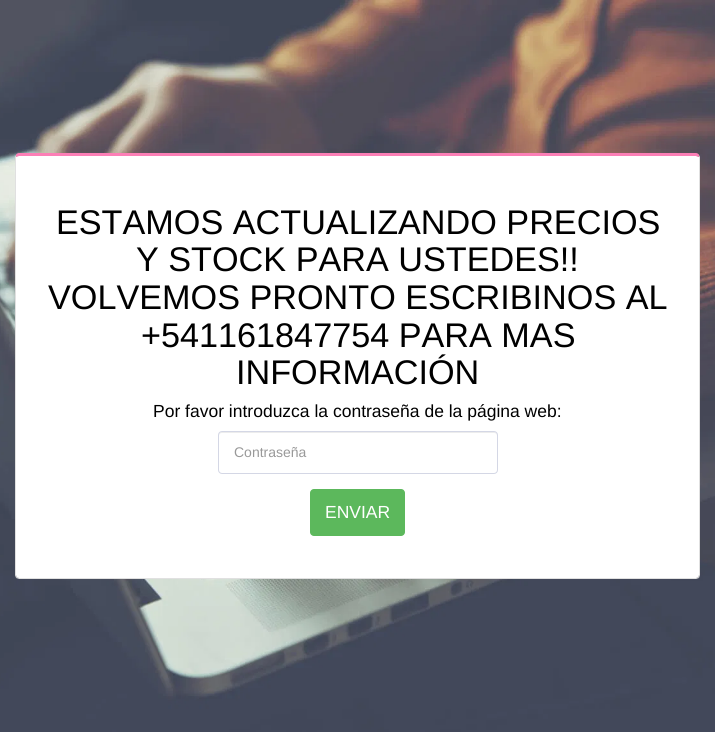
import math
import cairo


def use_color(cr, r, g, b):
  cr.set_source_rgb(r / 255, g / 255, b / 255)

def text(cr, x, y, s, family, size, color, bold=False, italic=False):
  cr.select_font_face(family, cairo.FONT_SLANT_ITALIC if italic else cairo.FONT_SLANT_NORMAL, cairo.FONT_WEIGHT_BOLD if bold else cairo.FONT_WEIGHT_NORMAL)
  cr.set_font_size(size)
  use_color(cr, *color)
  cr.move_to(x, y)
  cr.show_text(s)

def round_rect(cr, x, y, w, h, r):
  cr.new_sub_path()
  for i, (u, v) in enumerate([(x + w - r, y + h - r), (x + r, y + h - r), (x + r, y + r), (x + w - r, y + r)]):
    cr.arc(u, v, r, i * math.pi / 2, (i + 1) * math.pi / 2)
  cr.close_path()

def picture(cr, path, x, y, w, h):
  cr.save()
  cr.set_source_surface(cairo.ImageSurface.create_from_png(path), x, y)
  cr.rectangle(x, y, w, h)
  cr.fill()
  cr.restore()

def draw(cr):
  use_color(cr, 255, 255, 255)
  cr.paint()
  picture(cr, "img_01.png", 0, 0, 715, 732)
  use_color(cr, 255, 255, 255)
  cr.new_path()
  cr.move_to(19, 156)
  cr.line_to(696, 156)
  cr.curve_to(698, 156, 699, 157, 699, 157)
  cr.line_to(699, 575)
  cr.curve_to(699, 577, 698, 578, 696, 578)
  cr.line_to(19, 578)
  cr.curve_to(17, 578, 16, 577, 16, 575)
  cr.line_to(16, 157)
  cr.curve_to(16, 157, 17, 156, 19, 156)
  cr.close_path()
  cr.fill()
  use_color(cr, 252, 127, 182)
  cr.new_path()
  cr.move_to(19, 153)
  cr.curve_to(18, 153, 16, 154, 16, 155)
  cr.line_to(16, 157)
  cr.line_to(19, 156)
  cr.line_to(696, 156)
  cr.line_to(699, 157)
  cr.line_to(699, 155)
  cr.curve_to(699, 154, 697, 153, 696, 153)
  cr.close_path()
  cr.fill()
  use_color(cr, 224, 224, 224)
  cr.new_path()
  cr.move_to(700, 575)
  cr.line_to(700, 157)
  cr.line_to(699, 155)
  cr.line_to(699, 157)
  cr.line_to(699, 575)
  cr.line_to(698, 577)
  cr.line_to(699, 578)
  cr.close_path()
  cr.fill()
  cr.new_path()
  cr.move_to(19, 579)
  cr.line_to(696, 579)
  cr.line_to(699, 578)
  cr.line_to(698, 577)
  cr.line_to(696, 578)
  cr.line_to(19, 578)
  cr.line_to(17, 577)
  cr.line_to(16, 578)
  cr.close_path()
  cr.fill()
  cr.new_path()
  cr.move_to(15, 157)
  cr.line_to(15, 575)
  cr.curve_to(15, 576, 16, 577, 16, 578)
  cr.line_to(17, 577)
  cr.line_to(16, 575)
  cr.line_to(16, 157)
  cr.line_to(16, 155)
  cr.close_path()
  cr.fill()
  use_color(cr, 236, 236, 236)
  cr.new_path()
  cr.move_to(222, 433)
  cr.line_to(494, 433)
  cr.curve_to(496, 433, 497, 434, 497, 436)
  cr.line_to(497, 435)
  cr.curve_to(497, 433, 496, 432, 494, 432)
  cr.line_to(222, 432)
  cr.curve_to(220, 432, 219, 433, 219, 435)
  cr.line_to(219, 436)
  cr.curve_to(219, 434, 220, 433, 222, 433)
  cr.close_path()
  cr.fill()
  round_rect(cr, 218.5, 431.5, 279, 42, 3.5)
  use_color(cr, 212, 215, 229)
  cr.set_line_width(1)
  cr.stroke()
  use_color(cr, 92, 184, 92)
  round_rect(cr, 310, 489, 95, 47, 4)
  cr.fill()
  text(cr, 56, 234, "ESTAMOS ACTUALIZANDO PRECIOS", "Liberation Sans", 34.2, (0, 0, 0))
  text(cr, 136, 271, "Y STOCK PARA USTEDES!!", "Liberation Sans", 34.2, (0, 0, 0))
  text(cr, 48, 309, "VOLVEMOS PRONTO ESCRIBINOS AL", "Liberation Sans", 34.2, (0, 0, 0))
  text(cr, 141, 347, "+541161847754 PARA MAS", "Liberation Sans", 34.2, (0, 0, 0))
  text(cr, 236, 384, "INFORMACIÓN", "Liberation Sans", 34.2, (0, 0, 0))
  text(cr, 153, 417, "Por favor introduzca la contraseña de la página web:", "Liberation Sans", 17.5, (0, 0, 0))
  text(cr, 234, 457, "Contraseña", "Liberation Sans", 14, (153, 153, 153))
  text(cr, 325, 518, "ENVIAR", "Liberation Sans", 17.5, (255, 255, 255))


surface = cairo.ImageSurface(cairo.FORMAT_RGB24, 715, 732)
cr = cairo.Context(surface)
options = cairo.FontOptions()
options.set_hint_metrics(cairo.HINT_METRICS_OFF)
options.set_hint_style(cairo.HINT_STYLE_NONE)
cr.set_font_options(options)
cr.set_miter_limit(4)
draw(cr)
surface.write_to_png("out.png")
